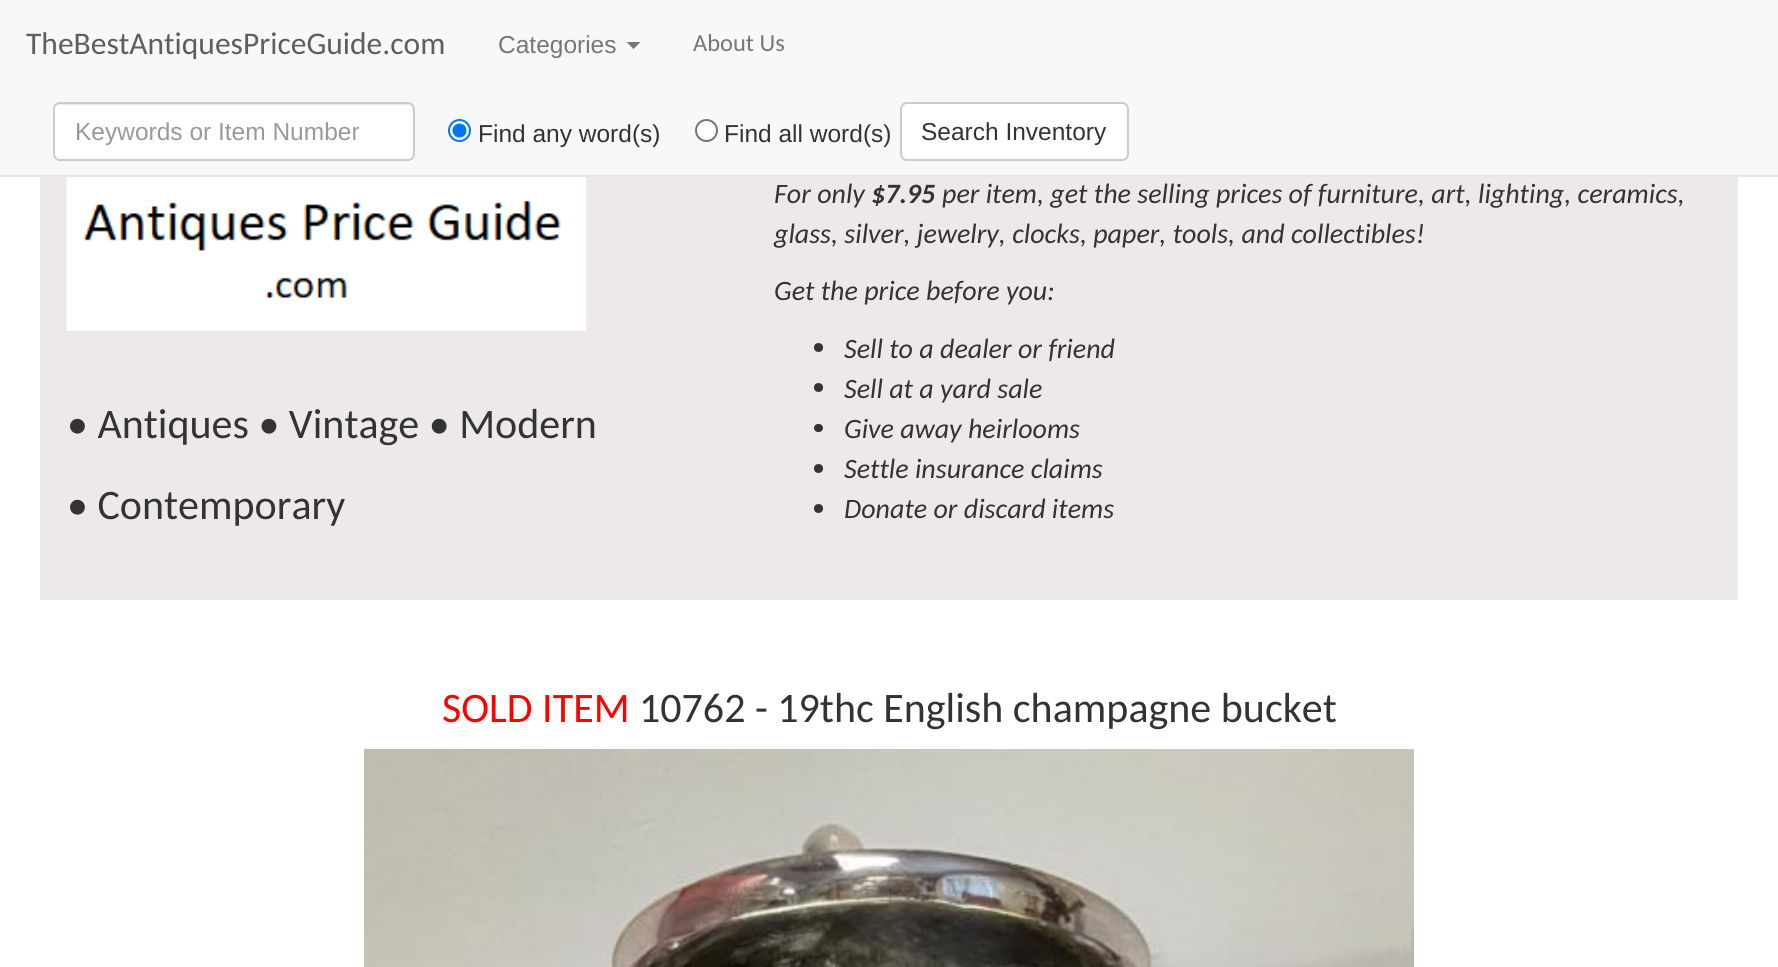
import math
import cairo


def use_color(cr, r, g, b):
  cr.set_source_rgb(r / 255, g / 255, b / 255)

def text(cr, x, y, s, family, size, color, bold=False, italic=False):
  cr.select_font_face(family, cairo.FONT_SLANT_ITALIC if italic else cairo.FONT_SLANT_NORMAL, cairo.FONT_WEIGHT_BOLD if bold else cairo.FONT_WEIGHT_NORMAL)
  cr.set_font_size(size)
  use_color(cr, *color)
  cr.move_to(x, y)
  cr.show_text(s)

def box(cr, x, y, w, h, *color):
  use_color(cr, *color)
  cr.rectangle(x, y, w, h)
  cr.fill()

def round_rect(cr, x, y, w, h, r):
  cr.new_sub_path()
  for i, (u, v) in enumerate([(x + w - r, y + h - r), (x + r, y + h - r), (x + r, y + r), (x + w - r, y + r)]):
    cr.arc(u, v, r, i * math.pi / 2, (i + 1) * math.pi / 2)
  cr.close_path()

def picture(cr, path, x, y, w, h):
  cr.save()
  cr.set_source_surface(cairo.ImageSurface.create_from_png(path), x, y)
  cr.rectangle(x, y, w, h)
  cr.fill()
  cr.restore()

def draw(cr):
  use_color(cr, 255, 255, 255)
  cr.paint()
  box(cr, 0, 0, 1778, 175, 248, 248, 248)
  box(cr, 0, 175, 1778, 2, 231, 231, 231)
  use_color(cr, 119, 119, 119)
  cr.new_path()
  cr.move_to(626.5, 42)
  cr.line_to(640.5, 42)
  cr.line_to(633.5, 49)
  cr.close_path()
  cr.fill()
  use_color(cr, 255, 255, 255)
  round_rect(cr, 53, 102, 362, 59, 7)
  cr.fill()
  use_color(cr, 236, 236, 236)
  cr.new_path()
  cr.move_to(60, 105)
  cr.line_to(408, 105)
  cr.curve_to(411, 105, 413, 107, 413, 110)
  cr.curve_to(413, 107, 412, 103, 408, 103)
  cr.line_to(59, 103)
  cr.curve_to(55, 103, 54, 107, 54, 110)
  cr.curve_to(54, 107, 57, 105, 60, 105)
  cr.close_path()
  cr.fill()
  round_rect(cr, 54, 103, 360, 57, 6)
  use_color(cr, 204, 204, 204)
  cr.stroke()
  use_color(cr, 255, 255, 255)
  cr.arc(459.5, 130.5, 10.5, 0, 2 * math.pi)
  cr.fill_preserve()
  use_color(cr, 0, 117, 255)
  cr.stroke()
  cr.arc(459.5, 130.5, 7, 0, 2 * math.pi)
  cr.fill()
  use_color(cr, 255, 255, 255)
  cr.arc(706.5, 130.5, 10.5, 0, 2 * math.pi)
  cr.fill_preserve()
  use_color(cr, 118, 118, 118)
  cr.stroke()
  use_color(cr, 255, 255, 255)
  round_rect(cr, 901, 103, 227, 57, 6)
  cr.fill_preserve()
  use_color(cr, 204, 204, 204)
  cr.stroke()
  box(cr, 40, 177, 1698, 423, 238, 233, 233)
  picture(cr, "img_01.png", 66, 177, 521, 154)
  use_color(cr, 51, 51, 51)
  cr.arc(818.5, 347.5, 4.5, 0, 2 * math.pi)
  cr.fill()
  cr.arc(818.5, 387.5, 4.5, 0, 2 * math.pi)
  cr.fill()
  round_rect(cr, 814, 424, 9, 8, 4)
  cr.fill()
  cr.arc(818.5, 468.5, 4.5, 0, 2 * math.pi)
  cr.fill()
  cr.arc(818.5, 508.5, 4.5, 0, 2 * math.pi)
  cr.fill()
  picture(cr, "img_02.png", 364, 749, 1050, 218)
  text(cr, 26, 54, "TheBestAntiquesPriceGuide.com", "Carlito", 31.5, (94, 94, 94))
  text(cr, 498, 53, "Categories", "Liberation Sans", 24.5, (119, 119, 119))
  text(cr, 693, 51, "About Us", "Carlito", 24.5, (119, 119, 119))
  text(cr, 75, 140, "Keywords or Item Number", "Liberation Sans", 24.5, (153, 153, 153))
  text(cr, 478, 142, "Find any word(s)", "Liberation Sans", 24.5, (51, 51, 51))
  text(cr, 724, 142, "Find all word(s)", "Liberation Sans", 24.5, (51, 51, 51))
  text(cr, 921, 140, "Search Inventory", "Liberation Sans", 24.5, (51, 51, 51))
  text(cr, 67, 438, "• Antiques • Vintage • Modern", "Carlito", 42, (51, 51, 51))
  text(cr, 67, 519, "• Contemporary", "Carlito", 42, (51, 51, 51))
  text(cr, 774, 203, "For only", "Carlito", 28, (51, 51, 51), italic=True)
  text(cr, 871, 203, "$7.95", "Carlito", 28, (51, 51, 51), bold=True, italic=True)
  text(cr, 942, 203, "per item, get the selling prices of furniture, art, lighting, ceramics,", "Carlito", 28, (51, 51, 51), italic=True)
  text(cr, 774, 243, "glass, silver, jewelry, clocks, paper, tools, and collectibles!", "Carlito", 28, (51, 51, 51), italic=True)
  text(cr, 774, 300, "Get the price before you:", "Carlito", 28, (51, 51, 51), italic=True)
  text(cr, 844, 358, "Sell to a dealer or friend", "Carlito", 28, (51, 51, 51), italic=True)
  text(cr, 844, 398, "Sell at a yard sale", "Carlito", 28, (51, 51, 51), italic=True)
  text(cr, 844, 438, "Give away heirlooms", "Carlito", 28, (51, 51, 51), italic=True)
  text(cr, 844, 478, "Settle insurance claims", "Carlito", 28, (51, 51, 51), italic=True)
  text(cr, 844, 518, "Donate or discard items", "Carlito", 28, (51, 51, 51), italic=True)
  text(cr, 442, 722, "SOLD ITEM", "Carlito", 42, (255, 0, 0))
  text(cr, 639, 722, "10762 - 19thc English champagne bucket", "Carlito", 42, (51, 51, 51))


surface = cairo.ImageSurface(cairo.FORMAT_RGB24, 1778, 967)
cr = cairo.Context(surface)
options = cairo.FontOptions()
options.set_hint_metrics(cairo.HINT_METRICS_OFF)
options.set_hint_style(cairo.HINT_STYLE_NONE)
cr.set_font_options(options)
cr.set_miter_limit(4)
draw(cr)
surface.write_to_png("out.png")
